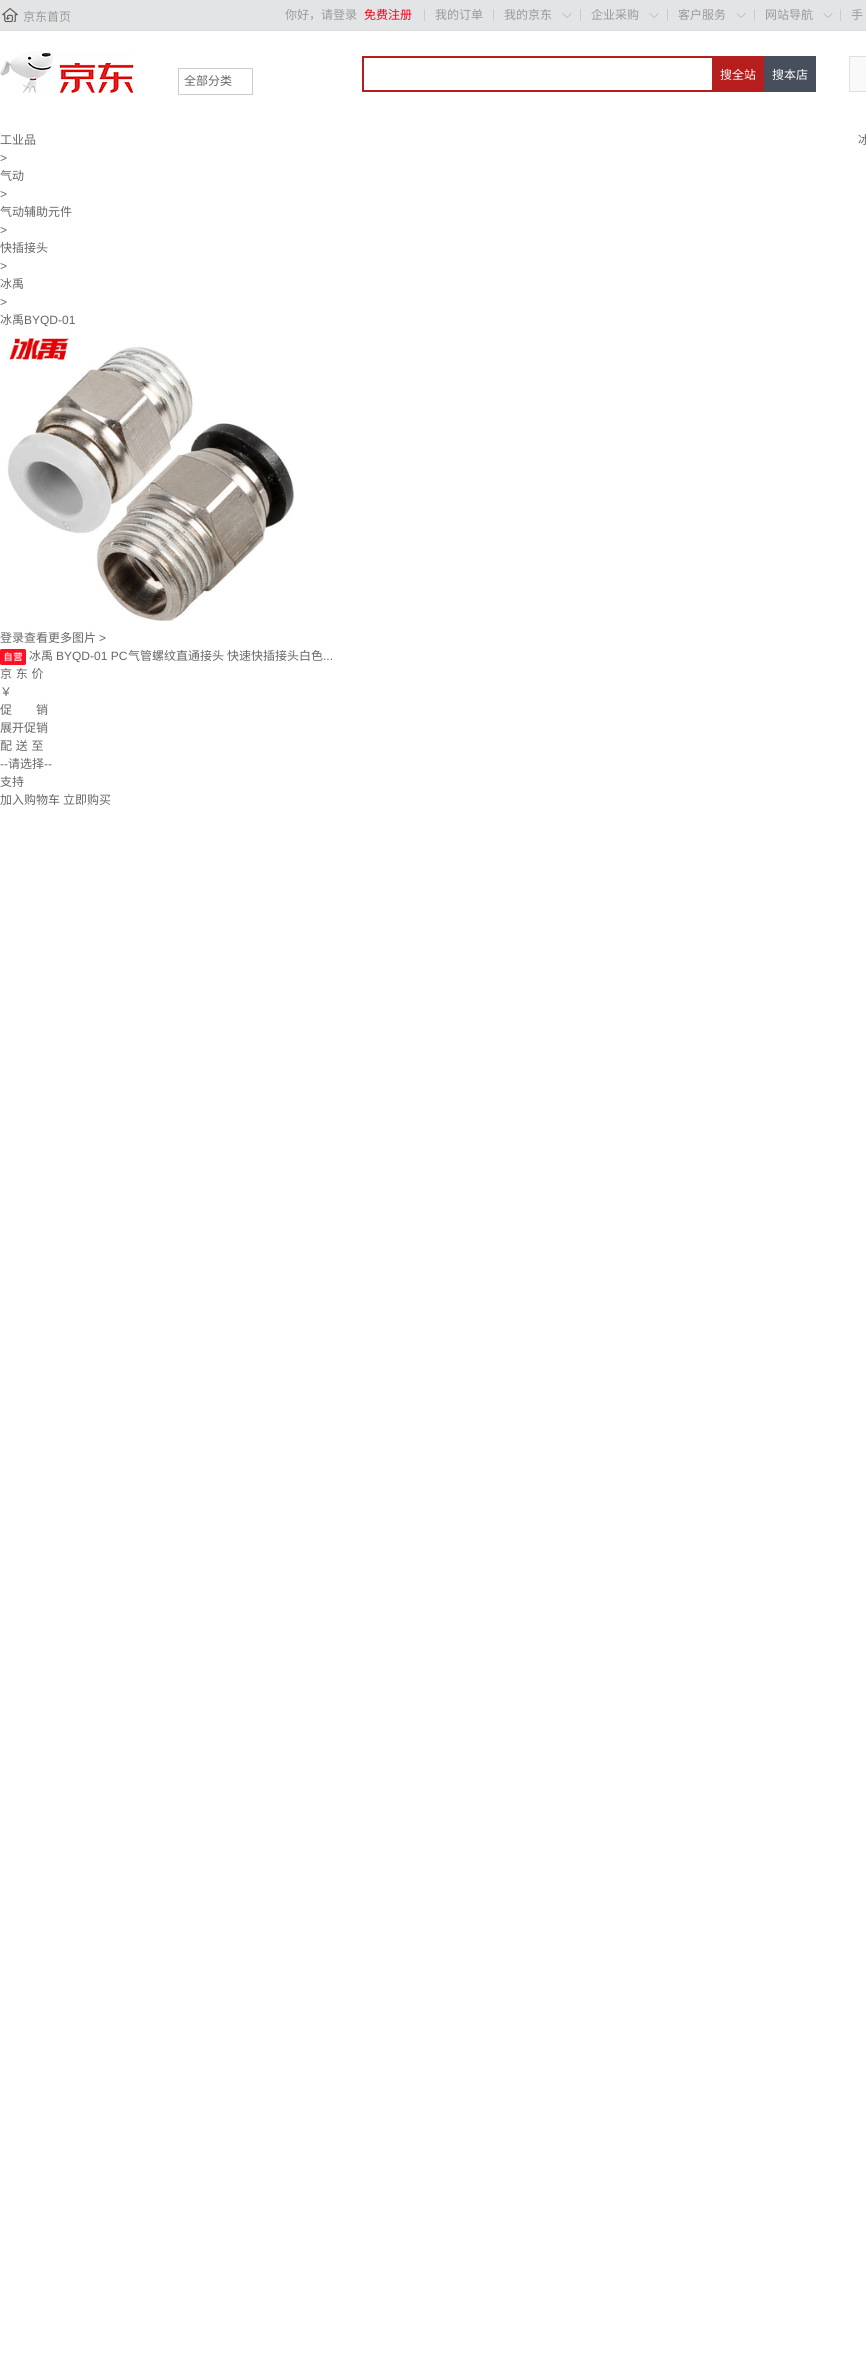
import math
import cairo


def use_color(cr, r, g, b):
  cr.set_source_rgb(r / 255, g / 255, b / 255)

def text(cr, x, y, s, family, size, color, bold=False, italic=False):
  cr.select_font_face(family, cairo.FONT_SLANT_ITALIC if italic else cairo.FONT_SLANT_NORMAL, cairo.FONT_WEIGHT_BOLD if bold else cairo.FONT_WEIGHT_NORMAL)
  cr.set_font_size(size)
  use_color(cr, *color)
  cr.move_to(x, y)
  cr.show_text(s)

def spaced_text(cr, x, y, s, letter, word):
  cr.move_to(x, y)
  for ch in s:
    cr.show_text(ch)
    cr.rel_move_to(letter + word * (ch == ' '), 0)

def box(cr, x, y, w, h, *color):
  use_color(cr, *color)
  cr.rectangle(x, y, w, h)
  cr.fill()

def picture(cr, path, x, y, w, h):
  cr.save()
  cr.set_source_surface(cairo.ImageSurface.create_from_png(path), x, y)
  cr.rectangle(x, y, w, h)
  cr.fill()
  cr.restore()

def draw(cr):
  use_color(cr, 255, 255, 255)
  cr.paint()
  box(cr, 0, 0, 866, 30, 227, 228, 229)
  box(cr, 0, 30, 866, 1, 221, 221, 221)
  picture(cr, "img_01.png", 2, 8, 16, 15)
  box(cr, 424, 9, 1, 12, 204, 204, 204)
  box(cr, 493, 9, 1, 12, 204, 204, 204)
  picture(cr, "img_02.png", 562, 13, 10, 5)
  box(cr, 580, 9, 1, 12, 204, 204, 204)
  picture(cr, "img_02.png", 649, 13, 10, 5)
  box(cr, 667, 9, 1, 12, 204, 204, 204)
  picture(cr, "img_02.png", 736, 13, 10, 5)
  box(cr, 754, 9, 1, 12, 204, 204, 204)
  picture(cr, "img_02.png", 823, 13, 10, 5)
  box(cr, 840, 9, 1, 12, 204, 204, 204)
  picture(cr, "img_03.png", 0, 51, 134, 42)
  cr.rectangle(178.5, 68.5, 74, 26)
  cr.set_line_width(1)
  cr.stroke()
  box(cr, 362, 56, 350, 2, 182, 29, 29)
  box(cr, 362, 90, 350, 2, 182, 29, 29)
  box(cr, 362, 56, 2, 36, 182, 29, 29)
  box(cr, 712, 56, 52, 36, 182, 29, 29)
  box(cr, 764, 56, 52, 36, 71, 78, 92)
  use_color(cr, 249, 249, 249)
  cr.rectangle(849.5, 56.5, 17, 35)
  cr.fill_preserve()
  use_color(cr, 223, 223, 223)
  cr.stroke()
  picture(cr, "img_04.png", 7, 335, 288, 287)
  picture(cr, "img_05.png", 0, 649, 26, 16)
  text(cr, 23, 21, "京东首页", "Noto Sans CJK SC", 12, (153, 153, 153))
  text(cr, 285, 19, "你好，请登录", "Noto Sans CJK SC", 12, (153, 153, 153))
  text(cr, 364, 19, "免费注册", "Noto Sans CJK SC", 12, (243, 2, 19))
  text(cr, 435, 19, "我的订单", "Noto Sans CJK SC", 12, (153, 153, 153))
  text(cr, 504, 19, "我的京东", "Noto Sans CJK SC", 12, (153, 153, 153))
  text(cr, 591, 19, "企业采购", "Noto Sans CJK SC", 12, (153, 153, 153))
  text(cr, 678, 19, "客户服务", "Noto Sans CJK SC", 12, (153, 153, 153))
  text(cr, 765, 19, "网站导航", "Noto Sans CJK SC", 12, (153, 153, 153))
  text(cr, 851, 19, "手", "Noto Sans CJK SC", 12, (153, 153, 153))
  text(cr, 184, 85, "全部分类", "Noto Sans CJK SC", 12, (102, 102, 102))
  text(cr, 720, 79, "搜全站", "Noto Sans CJK SC", 12, (255, 255, 255))
  text(cr, 772, 79, "搜本店", "Noto Sans CJK SC", 12, (255, 255, 255))
  text(cr, 0, 144, "工业品", "Noto Sans CJK SC", 12, (102, 102, 102))
  text(cr, 0, 162, ">", "Liberation Sans", 12, (102, 102, 102))
  text(cr, 0, 180, "气动", "Noto Sans CJK SC", 12, (102, 102, 102))
  text(cr, 0, 198, ">", "Liberation Sans", 12, (102, 102, 102))
  text(cr, 0, 216, "气动辅助元件", "Noto Sans CJK SC", 12, (102, 102, 102))
  text(cr, 0, 234, ">", "Liberation Sans", 12, (102, 102, 102))
  text(cr, 0, 252, "快插接头", "Noto Sans CJK SC", 12, (102, 102, 102))
  text(cr, 0, 270, ">", "Liberation Sans", 12, (102, 102, 102))
  text(cr, 0, 288, "冰禹", "Noto Sans CJK SC", 12, (102, 102, 102))
  text(cr, 0, 306, ">", "Liberation Sans", 12, (102, 102, 102))
  text(cr, 0, 324, "冰禹", "Noto Sans CJK SC", 12, (102, 102, 102))
  text(cr, 24, 324, "BYQD-01", "Liberation Sans", 12, (102, 102, 102))
  text(cr, 858, 144, "冰", "Noto Sans CJK SC", 12, (102, 102, 102))
  text(cr, 0, 642, "登录查看更多图片", "Noto Sans CJK SC", 12, (102, 102, 102))
  text(cr, 99, 642, ">", "Liberation Sans", 12, (102, 102, 102))
  text(cr, 29, 660, "冰禹", "Noto Sans CJK SC", 12, (102, 102, 102))
  text(cr, 56, 660, "BYQD-01 PC", "Liberation Sans", 12, (102, 102, 102))
  text(cr, 128, 660, "气管螺纹直通接头", "Noto Sans CJK SC", 12, (102, 102, 102))
  text(cr, 227, 660, "快速快插接头白色", "Noto Sans CJK SC", 12, (102, 102, 102))
  text(cr, 323, 660, "...", "Liberation Sans", 12, (102, 102, 102))
  cr.select_font_face("Noto Sans CJK SC")
  spaced_text(cr, 0, 678, "京 东 价", 0, 1)
  text(cr, 0, 696, "￥", "Noto Sans CJK SC", 12, (102, 102, 102))
  text(cr, 0, 714, "促　　销", "Noto Sans CJK SC", 12, (102, 102, 102))
  text(cr, 0, 732, "展开促销", "Noto Sans CJK SC", 12, (102, 102, 102))
  spaced_text(cr, 0, 750, "配 送 至", 0, 1)
  text(cr, 0, 768, "--", "Liberation Sans", 12, (102, 102, 102))
  text(cr, 8, 768, "请选择", "Noto Sans CJK SC", 12, (102, 102, 102))
  text(cr, 44, 768, "--", "Liberation Sans", 12, (102, 102, 102))
  text(cr, 0, 786, "支持", "Noto Sans CJK SC", 12, (102, 102, 102))
  text(cr, 0, 804, "加入购物车", "Noto Sans CJK SC", 12, (102, 102, 102))
  text(cr, 63, 804, "立即购买", "Noto Sans CJK SC", 12, (102, 102, 102))


surface = cairo.ImageSurface(cairo.FORMAT_RGB24, 866, 2367)
cr = cairo.Context(surface)
options = cairo.FontOptions()
options.set_hint_metrics(cairo.HINT_METRICS_OFF)
options.set_hint_style(cairo.HINT_STYLE_NONE)
cr.set_font_options(options)
cr.set_miter_limit(4)
draw(cr)
surface.write_to_png("out.png")
